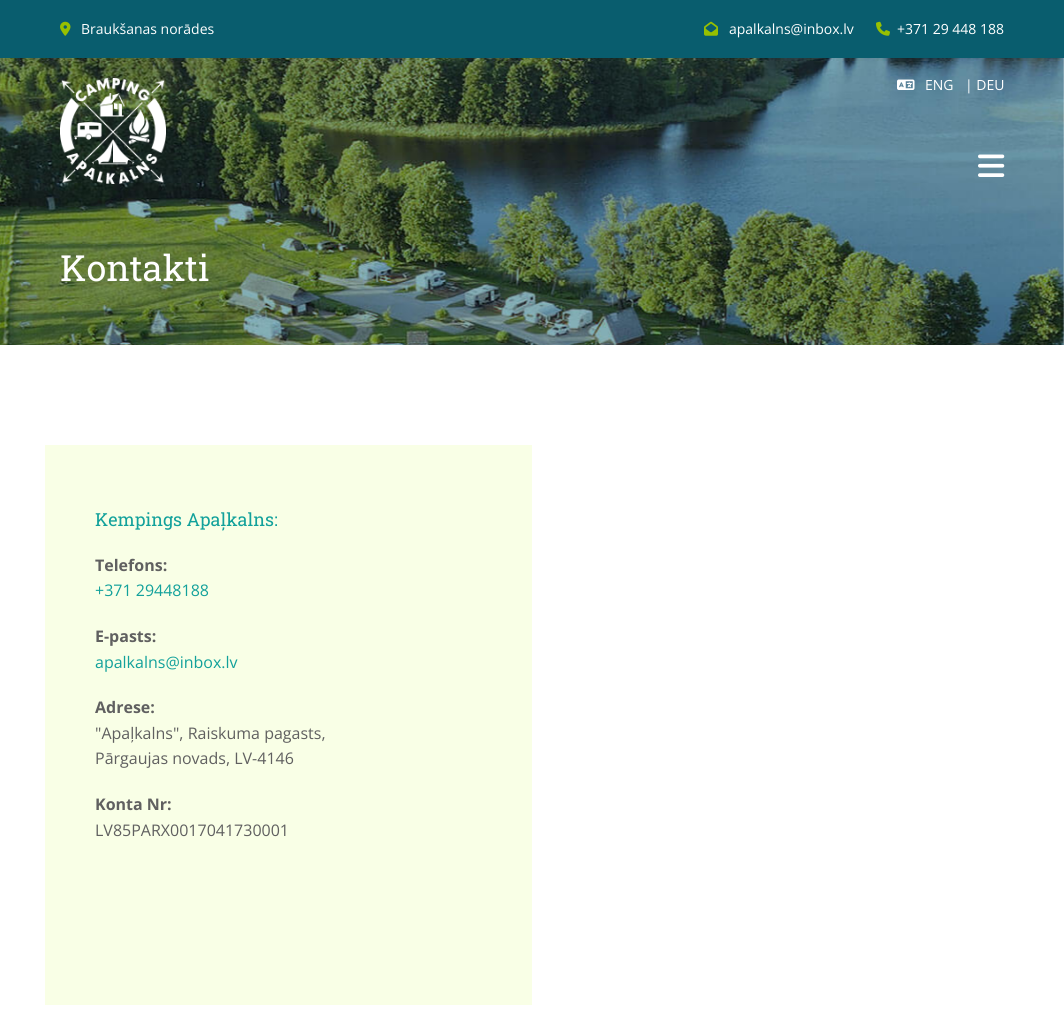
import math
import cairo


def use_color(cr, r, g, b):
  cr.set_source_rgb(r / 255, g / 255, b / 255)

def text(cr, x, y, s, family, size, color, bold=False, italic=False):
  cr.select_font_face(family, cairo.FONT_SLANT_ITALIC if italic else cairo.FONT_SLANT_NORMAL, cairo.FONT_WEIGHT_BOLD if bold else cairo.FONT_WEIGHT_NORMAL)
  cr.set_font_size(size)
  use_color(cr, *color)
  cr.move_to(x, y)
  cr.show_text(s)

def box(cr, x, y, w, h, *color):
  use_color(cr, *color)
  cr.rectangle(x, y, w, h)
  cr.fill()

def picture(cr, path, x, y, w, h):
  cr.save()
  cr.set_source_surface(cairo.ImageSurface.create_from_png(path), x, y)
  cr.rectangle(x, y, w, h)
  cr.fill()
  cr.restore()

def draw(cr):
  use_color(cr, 255, 255, 255)
  cr.paint()
  picture(cr, "img_01.png", 0, 58, 1064, 287)
  box(cr, 0, 0, 1064, 58, 9, 93, 110)
  picture(cr, "img_02.png", 60, 21, 11, 15)
  picture(cr, "img_03.png", 704, 21, 14, 15)
  picture(cr, "img_04.png", 876, 21, 14, 15)
  picture(cr, "img_05.png", 60, 78, 106, 106)
  picture(cr, "img_06.png", 897, 79, 18, 11)
  picture(cr, "img_07.png", 978, 154, 27, 23)
  box(cr, 45, 445, 487, 560, 249, 255, 230)
  text(cr, 81, 34, "Braukšanas norādes", "Open Sans", 14, (255, 255, 255))
  text(cr, 729, 34, "apalkalns@inbox.lv", "Open Sans", 14, (255, 255, 255))
  text(cr, 897, 34, "+371 29 448 188", "Open Sans", 14, (255, 255, 255))
  text(cr, 925, 90, "ENG", "Open Sans", 14, (255, 255, 255))
  text(cr, 965, 90, "| DEU", "Open Sans", 14, (255, 255, 255))
  text(cr, 60, 281, "Kontakti", "Roboto Slab", 36, (255, 255, 255))
  text(cr, 95, 526, "Kempings Apaļkalns:", "Roboto Slab", 18, (18, 161, 155))
  text(cr, 95, 571, "Telefons:", "Open Sans", 16, (96, 96, 96), bold=True)
  text(cr, 95, 596, "+371 29448188", "Open Sans", 16, (18, 161, 155))
  text(cr, 95, 642, "E-pasts:", "Open Sans", 16, (96, 96, 96), bold=True)
  text(cr, 95, 668, "apalkalns@inbox.lv", "Open Sans", 16, (18, 161, 155))
  text(cr, 95, 713, "Adrese:", "Open Sans", 16, (96, 96, 96), bold=True)
  text(cr, 95, 739, "\"Apaļkalns\", Raiskuma pagasts,", "Open Sans", 16, (96, 96, 96))
  text(cr, 95, 764, "Pārgaujas novads, LV-4146", "Open Sans", 16, (96, 96, 96))
  text(cr, 95, 810, "Konta Nr:", "Open Sans", 16, (96, 96, 96), bold=True)
  text(cr, 95, 836, "LV85PARX0017041730001", "Open Sans", 16, (96, 96, 96))


surface = cairo.ImageSurface(cairo.FORMAT_RGB24, 1064, 1029)
cr = cairo.Context(surface)
options = cairo.FontOptions()
options.set_hint_metrics(cairo.HINT_METRICS_OFF)
options.set_hint_style(cairo.HINT_STYLE_NONE)
cr.set_font_options(options)
cr.set_miter_limit(4)
draw(cr)
surface.write_to_png("out.png")
